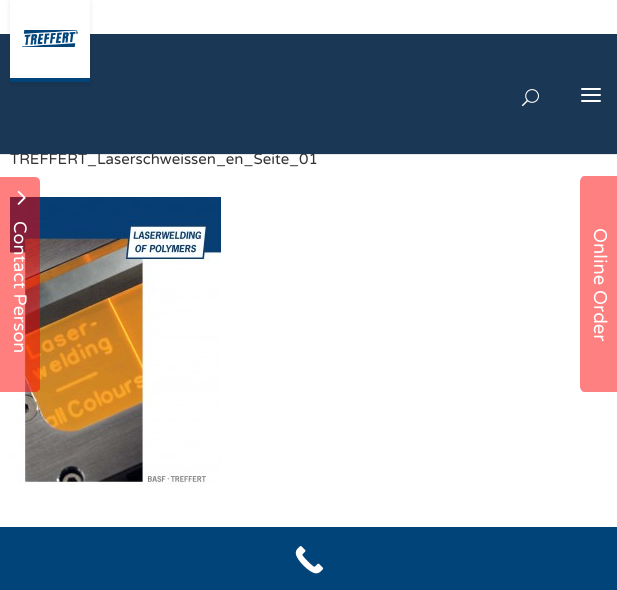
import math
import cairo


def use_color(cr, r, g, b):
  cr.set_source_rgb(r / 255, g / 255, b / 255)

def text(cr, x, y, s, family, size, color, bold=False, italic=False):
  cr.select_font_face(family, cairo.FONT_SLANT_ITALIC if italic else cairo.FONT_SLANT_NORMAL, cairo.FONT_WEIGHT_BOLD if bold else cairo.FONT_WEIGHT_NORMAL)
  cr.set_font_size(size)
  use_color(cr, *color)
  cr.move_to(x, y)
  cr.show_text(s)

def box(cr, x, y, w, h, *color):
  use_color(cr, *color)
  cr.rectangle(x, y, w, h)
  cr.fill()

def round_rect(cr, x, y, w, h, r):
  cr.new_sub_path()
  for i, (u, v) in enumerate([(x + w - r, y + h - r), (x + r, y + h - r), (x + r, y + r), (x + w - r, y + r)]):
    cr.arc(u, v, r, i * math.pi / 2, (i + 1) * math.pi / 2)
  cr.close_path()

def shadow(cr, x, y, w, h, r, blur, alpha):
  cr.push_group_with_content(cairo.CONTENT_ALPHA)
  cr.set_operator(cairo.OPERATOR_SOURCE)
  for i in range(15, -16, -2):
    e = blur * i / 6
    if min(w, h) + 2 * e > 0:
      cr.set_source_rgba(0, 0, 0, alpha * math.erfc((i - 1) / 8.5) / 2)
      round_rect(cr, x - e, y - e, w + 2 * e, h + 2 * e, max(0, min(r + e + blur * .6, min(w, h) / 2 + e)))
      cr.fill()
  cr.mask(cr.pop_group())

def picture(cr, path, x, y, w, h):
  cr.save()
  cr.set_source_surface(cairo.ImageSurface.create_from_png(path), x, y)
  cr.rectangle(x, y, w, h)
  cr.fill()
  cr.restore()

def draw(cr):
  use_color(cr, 255, 255, 255)
  cr.paint()
  cr.set_source_rgba(0, 0, 0, 0.1)
  cr.rectangle(0, 154, 617, 1)
  cr.fill()
  picture(cr, "img_04.png", 10, 197, 211, 288)
  cr.set_source_rgba(1, 0, 0, 0.5)
  cr.new_path()
  cr.move_to(0, 177)
  cr.line_to(35, 177)
  cr.curve_to(38, 177, 40, 179, 40, 182)
  cr.line_to(40, 387)
  cr.curve_to(40, 390, 38, 392, 35, 392)
  cr.line_to(0, 392)
  cr.close_path()
  cr.fill()
  picture(cr, "img_05.png", 17, 190, 9, 15)
  box(cr, 0, 527, 617, 63, 0, 68, 122)
  use_color(cr, 255, 128, 128)
  cr.new_path()
  cr.move_to(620, 176)
  cr.line_to(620, 392)
  cr.line_to(584, 392)
  cr.curve_to(582, 392, 580, 389, 580, 386)
  cr.line_to(580, 182)
  cr.curve_to(580, 179, 582, 176, 584, 176)
  cr.close_path()
  cr.fill()
  picture(cr, "img_06.png", 295, 546, 29, 28)
  text(cr, 10, 164, "TREFFERT_Laserschweissen_en_Seite_01", "Varela Round", 15, (51, 51, 51))
  box(cr, 0, 34, 617, 120, 26, 55, 85)
  use_color(cr, 0, 0, 0)
  shadow(cr, 10, 2, 80, 82, 0, 2.5, 0.1)
  box(cr, 10, 0, 80, 78, 255, 255, 255)
  picture(cr, "img_01.png", 22, 30, 56, 17)
  box(cr, 10, 78, 80, 4, 0, 68, 122)
  picture(cr, "img_03.png", 581, 88, 20, 14)
  picture(cr, "img_02.png", 521, 89, 18, 18)
  cr.save()
  cr.translate(14, 221)
  cr.rotate(90 * math.pi / 180)
  text(cr, 0, 0, "Contact Person", "Varela Round", 18, (255, 255, 255))
  cr.restore()
  cr.save()
  cr.translate(594, 228)
  cr.rotate(90 * math.pi / 180)
  text(cr, 0, 0, "Online Order", "Varela Round", 18.5, (255, 255, 255))
  cr.restore()


surface = cairo.ImageSurface(cairo.FORMAT_RGB24, 617, 590)
cr = cairo.Context(surface)
options = cairo.FontOptions()
options.set_hint_metrics(cairo.HINT_METRICS_OFF)
options.set_hint_style(cairo.HINT_STYLE_NONE)
cr.set_font_options(options)
cr.set_miter_limit(4)
draw(cr)
surface.write_to_png("out.png")
